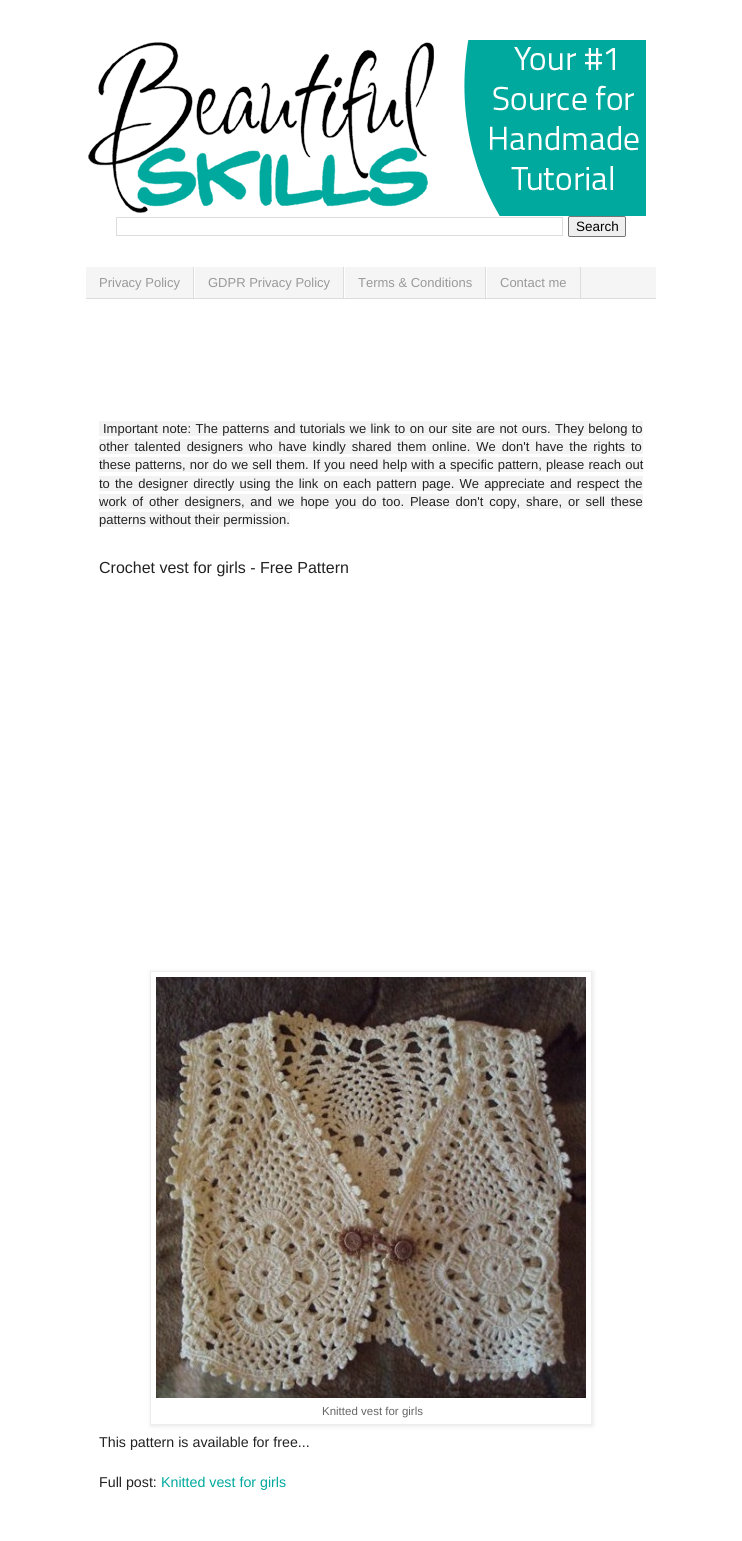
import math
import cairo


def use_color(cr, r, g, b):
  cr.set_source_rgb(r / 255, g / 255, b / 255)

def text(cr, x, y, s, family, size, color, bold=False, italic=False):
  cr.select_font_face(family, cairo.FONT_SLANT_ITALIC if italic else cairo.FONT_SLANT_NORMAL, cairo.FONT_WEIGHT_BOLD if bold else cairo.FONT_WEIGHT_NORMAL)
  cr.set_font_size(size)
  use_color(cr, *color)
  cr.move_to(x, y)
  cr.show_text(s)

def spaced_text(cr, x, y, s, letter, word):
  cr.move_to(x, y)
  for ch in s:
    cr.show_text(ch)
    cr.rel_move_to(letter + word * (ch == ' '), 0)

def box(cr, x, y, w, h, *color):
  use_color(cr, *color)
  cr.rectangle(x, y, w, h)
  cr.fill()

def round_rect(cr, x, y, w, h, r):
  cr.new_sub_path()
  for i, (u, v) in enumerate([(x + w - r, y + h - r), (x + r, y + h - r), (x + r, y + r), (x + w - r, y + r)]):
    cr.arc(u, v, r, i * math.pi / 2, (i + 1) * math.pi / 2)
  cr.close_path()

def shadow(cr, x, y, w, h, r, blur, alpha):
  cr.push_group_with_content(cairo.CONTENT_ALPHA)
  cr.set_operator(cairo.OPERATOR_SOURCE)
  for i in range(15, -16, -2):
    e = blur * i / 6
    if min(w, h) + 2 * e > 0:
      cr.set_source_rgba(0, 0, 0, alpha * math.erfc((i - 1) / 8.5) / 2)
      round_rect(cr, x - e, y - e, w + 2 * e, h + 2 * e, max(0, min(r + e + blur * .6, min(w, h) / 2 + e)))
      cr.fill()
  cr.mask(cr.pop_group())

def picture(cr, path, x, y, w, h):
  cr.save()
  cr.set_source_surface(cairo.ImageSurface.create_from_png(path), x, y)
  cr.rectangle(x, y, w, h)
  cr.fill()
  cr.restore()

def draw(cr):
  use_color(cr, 255, 255, 255)
  cr.paint()
  picture(cr, "img_01.png", 88, 40, 558, 176)
  cr.rectangle(116.5, 217.5, 446, 18)
  use_color(cr, 221, 221, 221)
  cr.set_line_width(1)
  cr.stroke()
  use_color(cr, 239, 239, 239)
  round_rect(cr, 568.5, 216.5, 57, 20, 1.5)
  cr.fill_preserve()
  use_color(cr, 118, 118, 118)
  cr.stroke()
  box(cr, 86, 267, 570, 31, 245, 245, 245)
  box(cr, 86, 298, 570, 1, 221, 221, 221)
  box(cr, 193, 267, 1, 31, 221, 221, 221)
  box(cr, 343, 267, 1, 31, 221, 221, 221)
  box(cr, 194, 267, 1, 31, 255, 255, 255)
  box(cr, 485, 267, 1, 31, 221, 221, 221)
  box(cr, 344, 267, 1, 31, 255, 255, 255)
  box(cr, 580, 267, 1, 31, 221, 221, 221)
  box(cr, 486, 267, 1, 31, 255, 255, 255)
  box(cr, 99, 421, 544, 15, 243, 243, 243)
  box(cr, 99, 439, 544, 15, 243, 243, 243)
  box(cr, 99, 457, 544, 15, 243, 243, 243)
  box(cr, 99, 476, 544, 15, 243, 243, 243)
  box(cr, 99, 494, 544, 15, 243, 243, 243)
  box(cr, 99, 512, 191, 15, 243, 243, 243)
  cr.save()
  cr.set_fill_rule(cairo.FILL_RULE_EVEN_ODD)
  cr.new_path()
  cr.move_to(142, 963)
  cr.line_to(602, 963)
  cr.line_to(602, 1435)
  cr.line_to(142, 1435)
  cr.close_path()
  cr.move_to(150, 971)
  cr.line_to(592, 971)
  cr.line_to(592, 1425)
  cr.line_to(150, 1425)
  cr.close_path()
  cr.clip()
  use_color(cr, 0, 0, 0)
  shadow(cr, 151, 972, 442, 454, 0, 2.5, 0.1)
  cr.restore()
  cr.rectangle(150.5, 971.5, 441, 453)
  use_color(cr, 238, 238, 238)
  cr.stroke()
  picture(cr, "img_02.png", 156, 977, 430, 421)
  text(cr, 576, 231, "Search", "Liberation Sans", 13.5, (0, 0, 0))
  text(cr, 99, 287, "Privacy Policy", "Liberation Sans", 13, (153, 153, 153))
  text(cr, 208, 287, "GDPR Privacy Policy", "Liberation Sans", 13, (153, 153, 153))
  text(cr, 358, 287, "Terms & Conditions", "Liberation Sans", 13, (153, 153, 153))
  text(cr, 500, 287, "Contact me", "Liberation Sans", 13, (153, 153, 153))
  use_color(cr, 34, 34, 34)
  spaced_text(cr, 103, 433, "Important note: The patterns and tutorials we link to on our site are not ours. They belong to", 0, 0.75)
  spaced_text(cr, 99, 451, "other talented designers who have kindly shared them online. We don't have the rights to", 0, 2.25)
  spaced_text(cr, 99, 469, "these patterns, nor do we sell them. If you need help with a specific pattern, please reach out", 0, 0.6)
  spaced_text(cr, 99, 488, "to the designer directly using the link on each pattern page. We appreciate and respect the", 0, 1.5)
  spaced_text(cr, 99, 506, "work of other designers, and we hope you do too. Please don't copy, share, or sell these", 0, 2.25)
  text(cr, 99, 524, "patterns without their permission.", "Liberation Sans", 13, (34, 34, 34))
  text(cr, 99, 573, "Crochet vest for girls - Free Pattern", "Liberation Sans", 16, (34, 34, 34))
  text(cr, 322, 1415, "Knitted vest for girls", "Liberation Sans", 11.5, (102, 102, 102))
  text(cr, 99, 1447, "This pattern is available for free...", "Liberation Sans", 14.25, (34, 34, 34))
  text(cr, 99, 1487, "Full post:", "Liberation Sans", 14.25, (34, 34, 34))
  text(cr, 161, 1487, "Knitted vest for girls", "Liberation Sans", 14.25, (0, 169, 157))


surface = cairo.ImageSurface(cairo.FORMAT_RGB24, 742, 1541)
cr = cairo.Context(surface)
options = cairo.FontOptions()
options.set_hint_metrics(cairo.HINT_METRICS_OFF)
options.set_hint_style(cairo.HINT_STYLE_NONE)
cr.set_font_options(options)
cr.set_miter_limit(4)
draw(cr)
surface.write_to_png("out.png")
